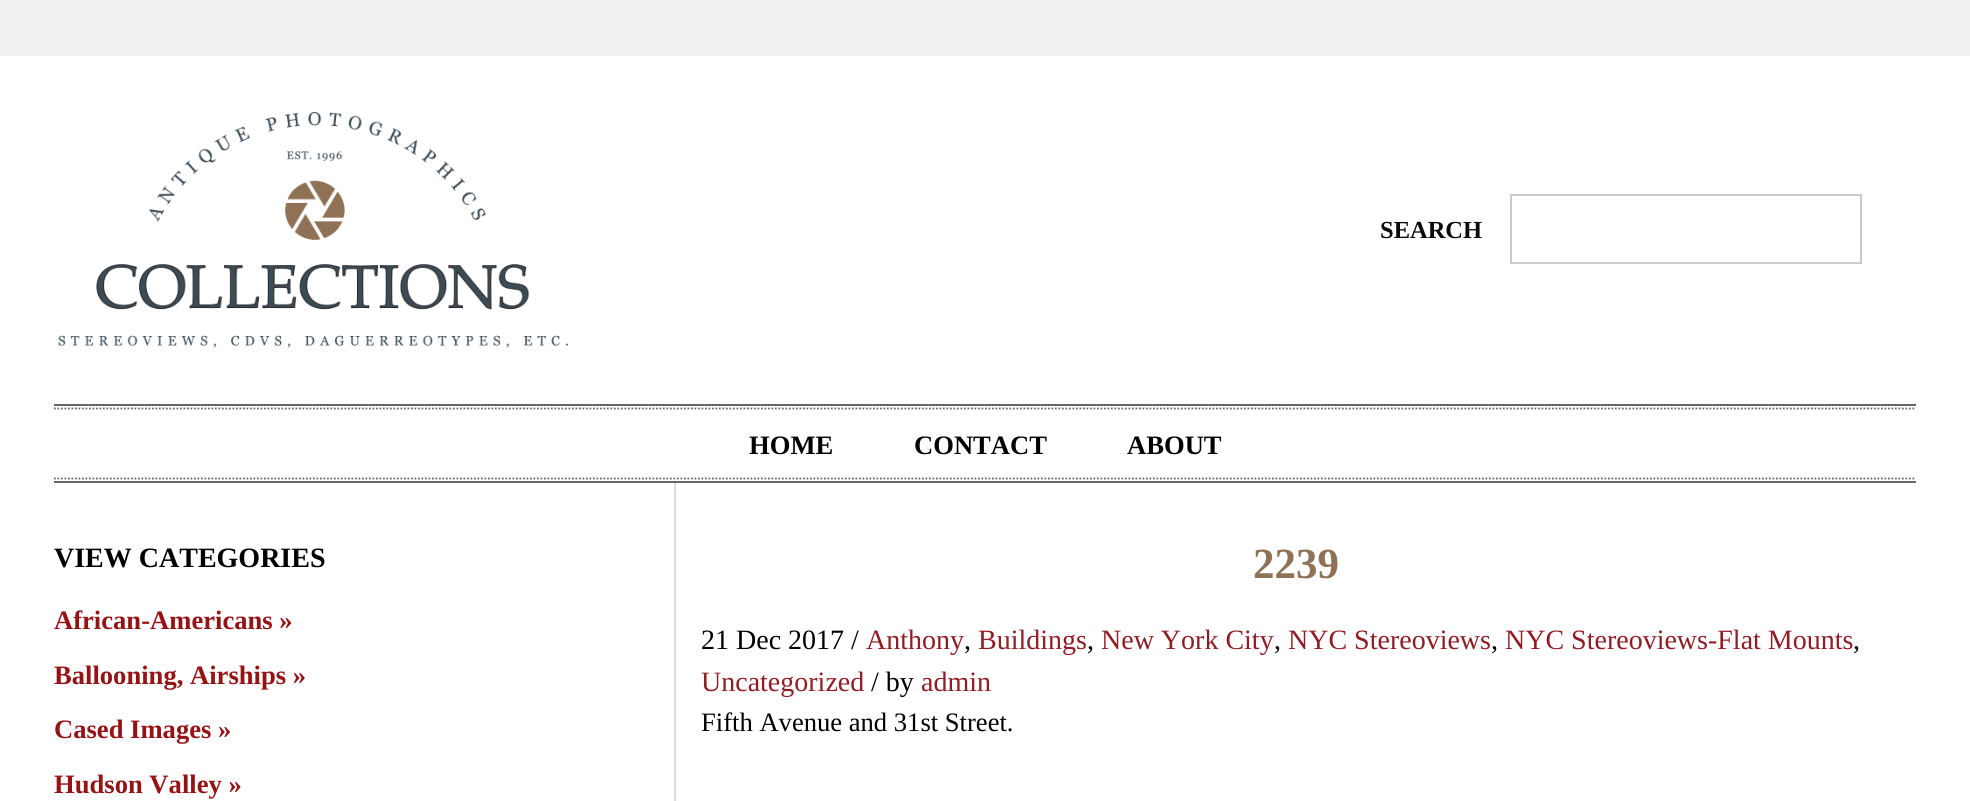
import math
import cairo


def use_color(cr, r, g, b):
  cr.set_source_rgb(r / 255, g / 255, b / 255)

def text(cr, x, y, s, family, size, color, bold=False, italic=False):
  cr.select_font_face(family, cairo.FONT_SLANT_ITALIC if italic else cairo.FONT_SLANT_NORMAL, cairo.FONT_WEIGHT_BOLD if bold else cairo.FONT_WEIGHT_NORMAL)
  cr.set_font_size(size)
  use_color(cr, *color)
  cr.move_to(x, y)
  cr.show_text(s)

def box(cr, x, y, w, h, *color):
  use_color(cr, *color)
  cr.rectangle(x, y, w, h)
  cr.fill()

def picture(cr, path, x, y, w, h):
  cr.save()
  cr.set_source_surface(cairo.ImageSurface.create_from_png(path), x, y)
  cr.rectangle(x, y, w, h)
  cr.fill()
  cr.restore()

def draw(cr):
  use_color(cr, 240, 240, 240)
  cr.paint()
  box(cr, 0, 56, 1970, 745, 255, 255, 255)
  box(cr, 54, 404, 1862, 2, 102, 102, 102)
  picture(cr, "img_01.png", 58, 112, 510, 236)
  cr.rectangle(1511, 195, 350, 68)
  use_color(cr, 202, 202, 202)
  cr.stroke()
  box(cr, 54, 481, 1862, 2, 102, 102, 102)
  cr.new_path()
  cr.move_to(54, 408.5)
  cr.line_to(1916, 408.5)
  cr.set_line_width(1.8)
  cr.set_dash([1.75, 1.75])
  cr.stroke()
  cr.new_path()
  cr.move_to(54, 478.5)
  cr.line_to(1916, 478.5)
  cr.stroke()
  box(cr, 674, 483, 2, 318, 219, 219, 219)
  text(cr, 1380, 238, "SEARCH", "Liberation Serif", 24.5, (10, 10, 10), bold=True)
  text(cr, 749, 454, "HOME", "Liberation Serif", 26.6, (0, 0, 0), bold=True)
  text(cr, 914, 454, "CONTACT", "Liberation Serif", 26.6, (0, 0, 0), bold=True)
  text(cr, 1127, 454, "ABOUT", "Liberation Serif", 26.6, (0, 0, 0), bold=True)
  text(cr, 54, 567, "VIEW CATEGORIES", "Liberation Serif", 28, (0, 0, 0), bold=True)
  text(cr, 54, 629, "African-Americans »", "Liberation Serif", 26.6, (149, 19, 21), bold=True)
  text(cr, 54, 684, "Ballooning, Airships »", "Liberation Serif", 26.6, (149, 19, 21), bold=True)
  text(cr, 54, 738, "Cased Images »", "Liberation Serif", 26.6, (149, 19, 21), bold=True)
  text(cr, 54, 793, "Hudson Valley »", "Liberation Serif", 26.6, (149, 19, 21), bold=True)
  text(cr, 1253, 578, "2239", "Liberation Serif", 43, (143, 114, 86), bold=True)
  text(cr, 701, 649, "21 Dec 2017 /", "Liberation Serif", 28, (0, 0, 0))
  text(cr, 866, 649, "Anthony", "Liberation Serif", 28, (144, 28, 36))
  text(cr, 964, 649, ",", "Liberation Serif", 28, (0, 0, 0))
  text(cr, 978, 649, "Buildings", "Liberation Serif", 28, (144, 28, 36))
  text(cr, 1087, 649, ",", "Liberation Serif", 28, (0, 0, 0))
  text(cr, 1101, 649, "New York City", "Liberation Serif", 28, (144, 28, 36))
  text(cr, 1274, 649, ",", "Liberation Serif", 28, (0, 0, 0))
  text(cr, 1288, 649, "NYC Stereoviews", "Liberation Serif", 28, (144, 28, 36))
  text(cr, 1491, 649, ",", "Liberation Serif", 28, (0, 0, 0))
  text(cr, 1505, 649, "NYC Stereoviews-Flat Mounts", "Liberation Serif", 28, (144, 28, 36))
  text(cr, 1853, 649, ",", "Liberation Serif", 28, (0, 0, 0))
  text(cr, 701, 691, "Uncategorized", "Liberation Serif", 28, (144, 28, 36))
  text(cr, 871, 691, "/ by", "Liberation Serif", 28, (0, 0, 0))
  text(cr, 921, 691, "admin", "Liberation Serif", 28, (144, 28, 36))
  text(cr, 701, 731, "Fifth Avenue and 31st Street.", "Liberation Serif", 26.6, (0, 0, 0))


surface = cairo.ImageSurface(cairo.FORMAT_RGB24, 1970, 801)
cr = cairo.Context(surface)
options = cairo.FontOptions()
options.set_hint_metrics(cairo.HINT_METRICS_OFF)
options.set_hint_style(cairo.HINT_STYLE_NONE)
cr.set_font_options(options)
cr.set_miter_limit(4)
draw(cr)
surface.write_to_png("out.png")
